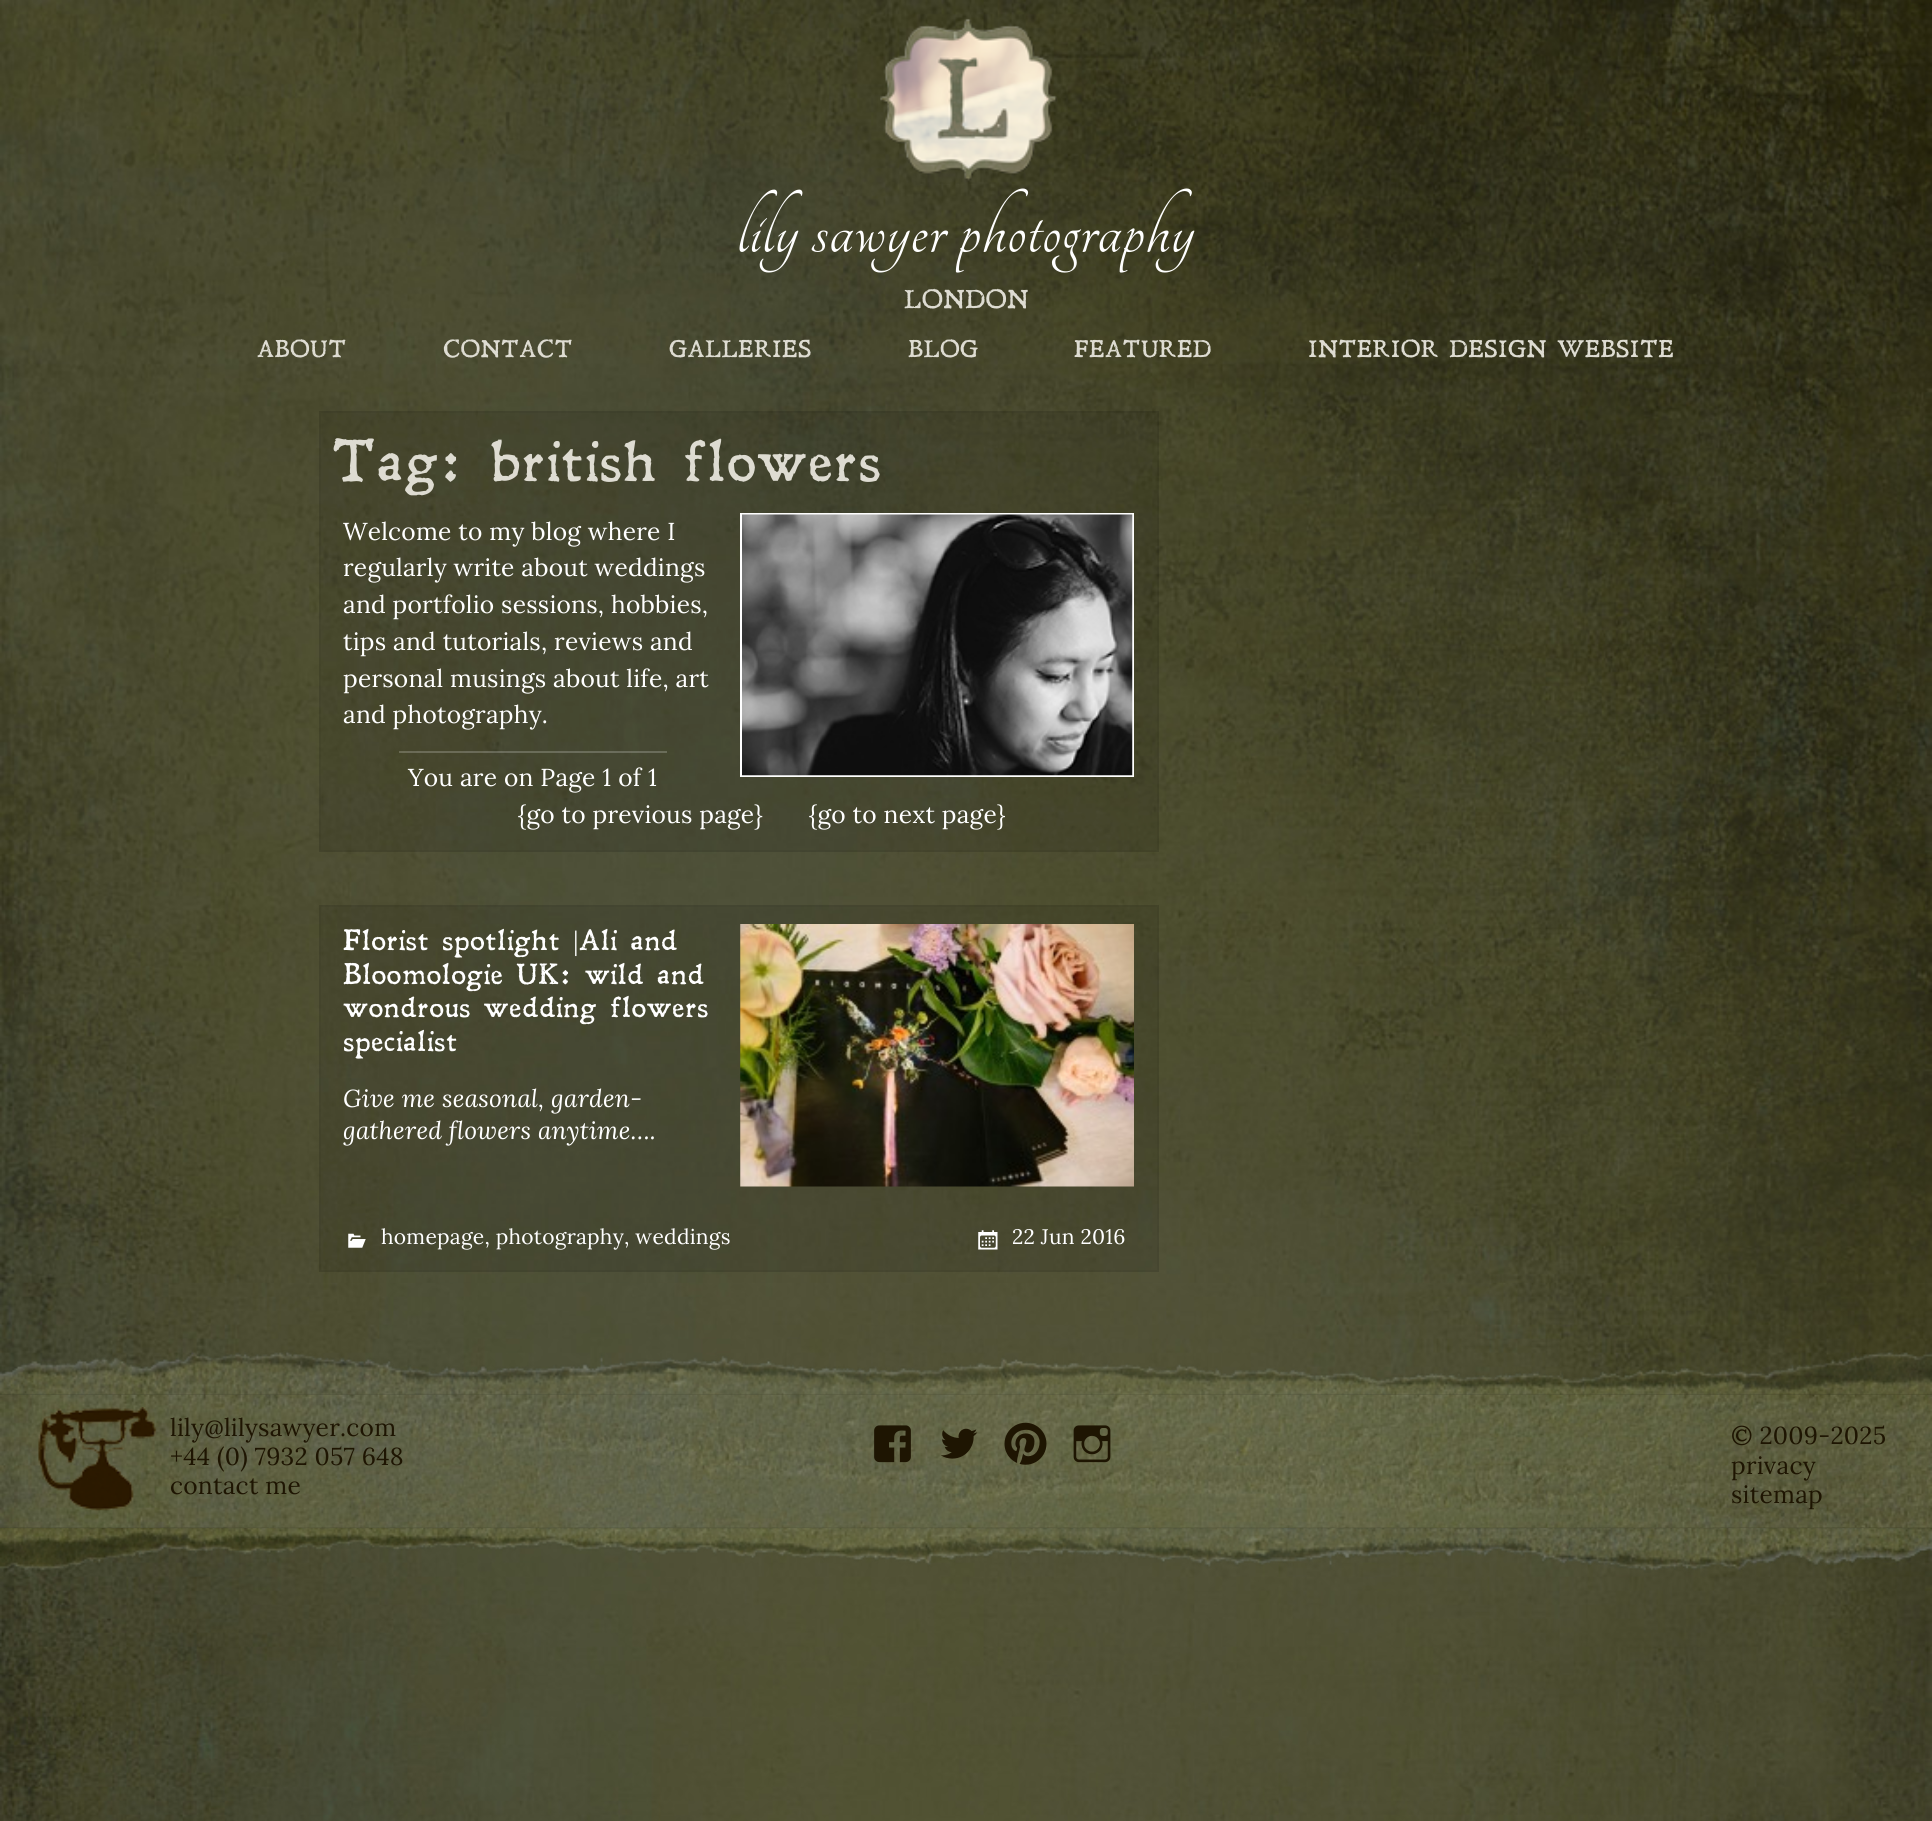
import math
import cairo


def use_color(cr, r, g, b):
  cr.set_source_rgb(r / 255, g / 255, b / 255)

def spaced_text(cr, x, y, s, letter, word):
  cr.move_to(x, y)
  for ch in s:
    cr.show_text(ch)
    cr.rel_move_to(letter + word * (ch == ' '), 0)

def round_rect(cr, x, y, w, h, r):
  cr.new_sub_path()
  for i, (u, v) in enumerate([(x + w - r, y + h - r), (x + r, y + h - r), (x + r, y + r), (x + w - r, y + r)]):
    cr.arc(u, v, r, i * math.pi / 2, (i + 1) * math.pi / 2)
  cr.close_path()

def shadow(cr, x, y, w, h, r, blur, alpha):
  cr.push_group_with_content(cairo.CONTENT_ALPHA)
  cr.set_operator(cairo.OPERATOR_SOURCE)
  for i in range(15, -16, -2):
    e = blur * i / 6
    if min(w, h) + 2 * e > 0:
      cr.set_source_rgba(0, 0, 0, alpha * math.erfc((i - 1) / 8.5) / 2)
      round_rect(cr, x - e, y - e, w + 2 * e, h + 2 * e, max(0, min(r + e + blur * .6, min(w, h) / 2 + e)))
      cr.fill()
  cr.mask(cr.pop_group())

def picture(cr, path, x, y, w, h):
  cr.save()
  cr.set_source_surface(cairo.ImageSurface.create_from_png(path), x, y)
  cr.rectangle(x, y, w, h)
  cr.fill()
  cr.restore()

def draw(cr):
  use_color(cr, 255, 255, 255)
  cr.paint()
  picture(cr, "img_01.png", 0, 1282, 1932, 539)
  picture(cr, "img_02.png", 0, 0, 1932, 1283)
  picture(cr, "img_03.png", 880, 18, 177, 167)
  cr.set_source_rgba(0, 0, 0, 0.1)
  cr.rectangle(319, 411, 840, 441)
  cr.fill()
  cr.rectangle(320, 412, 838, 439)
  cr.set_source_rgba(0, 0, 0, 0.05)
  cr.stroke()
  cr.rectangle(741, 514, 392, 262)
  use_color(cr, 255, 255, 255)
  cr.stroke()
  picture(cr, "img_04.png", 742, 514, 391, 262)
  cr.set_source_rgba(1, 1, 1, 0.2)
  cr.rectangle(399, 751, 268, 2)
  cr.fill()
  cr.set_source_rgba(0, 0, 0, 0.1)
  cr.rectangle(319, 905, 840, 367)
  cr.fill()
  cr.rectangle(320, 906, 838, 365)
  cr.set_source_rgba(0, 0, 0, 0.05)
  cr.stroke()
  picture(cr, "img_05.png", 740, 924, 394, 263)
  picture(cr, "img_06.png", 348, 1233, 18, 15)
  picture(cr, "img_07.png", 978, 1230, 20, 20)
  picture(cr, "img_08.png", 0, 1350, 1932, 45)
  picture(cr, "img_15.png", 0, 1527, 1932, 46)
  use_color(cr, 0, 0, 0)
  shadow(cr, 0, 1395, 1932, 133, 0, 1, 0.15)
  picture(cr, "img_09.png", 0, 1394, 1932, 134)
  picture(cr, "img_10.png", 38, 1407, 119, 104)
  picture(cr, "img_11.png", 874, 1425, 37, 38)
  picture(cr, "img_12.png", 941, 1428, 37, 31)
  picture(cr, "img_13.png", 1004, 1422, 43, 43)
  picture(cr, "img_14.png", 1073, 1425, 38, 38)
  cr.select_font_face("Tangerine")
  cr.set_font_size(84)
  use_color(cr, 255, 255, 255)
  spaced_text(cr, 737, 252, "lily sawyer photography", 0.8, 0)
  cr.select_font_face("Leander")
  cr.set_font_size(24.5)
  use_color(cr, 222, 220, 210)
  spaced_text(cr, 904, 308, "LONDON", 0.25, 0)
  cr.set_font_size(22.75)
  spaced_text(cr, 257, 357, "ABOUT", 0.25, 0)
  spaced_text(cr, 443, 357, "CONTACT", 0.25, 0)
  spaced_text(cr, 669, 357, "GALLERIES", 0.25, 0)
  spaced_text(cr, 908, 357, "BLOG", 0.25, 0)
  spaced_text(cr, 1074, 357, "FEATURED", 0.25, 0)
  spaced_text(cr, 1308, 357, "INTERIOR DESIGN WEBSITE", 0.25, 0)
  cr.set_font_size(56)
  spaced_text(cr, 331, 481, "Tag: british flowers", 0.6, 0)
  cr.select_font_face("Lora")
  cr.set_font_size(24.5)
  use_color(cr, 255, 255, 255)
  spaced_text(cr, 343, 540, "Welcome to my blog where I", 0.25, 0)
  spaced_text(cr, 343, 576, "regularly write about weddings", 0.25, 0)
  spaced_text(cr, 343, 613, "and portfolio sessions, hobbies,", 0.25, 0)
  spaced_text(cr, 343, 650, "tips and tutorials, reviews and", 0.25, 0)
  spaced_text(cr, 343, 687, "personal musings about life, art", 0.25, 0)
  spaced_text(cr, 343, 723, "and photography.", 0.25, 0)
  spaced_text(cr, 408, 786, "You are on Page 1 of 1", 0.25, 0)
  spaced_text(cr, 518, 823, "{go to previous page}", 0.25, 0)
  spaced_text(cr, 809, 823, "{go to next page}", 0.25, 0)
  cr.select_font_face("Leander")
  cr.set_font_size(28)
  spaced_text(cr, 343, 950, "Florist spotlight", 0.25, 0)
  cr.select_font_face("Liberation Serif")
  spaced_text(cr, 573, 950, "|", 0.25, 0)
  cr.select_font_face("Leander")
  spaced_text(cr, 579, 950, "Ali and", 0.25, 0)
  spaced_text(cr, 343, 984, "Bloomologie UK: wild and", 0.25, 0)
  spaced_text(cr, 343, 1017, "wondrous wedding flowers", 0.25, 0)
  spaced_text(cr, 343, 1051, "specialist", 0.25, 0)
  cr.select_font_face("Lora", cairo.FONT_SLANT_ITALIC)
  cr.set_font_size(24.5)
  spaced_text(cr, 343, 1107, "Give me seasonal, garden-", 0.25, 0)
  spaced_text(cr, 343, 1139, "gathered flowers anytime….", 0.25, 0)
  cr.select_font_face("Lora")
  cr.set_font_size(21)
  spaced_text(cr, 381, 1244, "homepage, photography, weddings", 0.25, 0)
  spaced_text(cr, 1012, 1244, "22 Jun 2016", 0.25, 0)
  cr.set_font_size(24.5)
  use_color(cr, 30, 21, 2)
  spaced_text(cr, 170, 1436, "lily@lilysawyer.com", 0.25, 0)
  spaced_text(cr, 170, 1465, "+44 (0) 7932 057 648", 0.25, 0)
  spaced_text(cr, 170, 1494, "contact me", 0.25, 0)
  spaced_text(cr, 1731, 1444, "© 2009-2025", 0.25, 0)
  spaced_text(cr, 1731, 1474, "privacy", 0.25, 0)
  spaced_text(cr, 1731, 1503, "sitemap", 0.25, 0)


surface = cairo.ImageSurface(cairo.FORMAT_RGB24, 1932, 1821)
cr = cairo.Context(surface)
options = cairo.FontOptions()
options.set_hint_metrics(cairo.HINT_METRICS_OFF)
options.set_hint_style(cairo.HINT_STYLE_NONE)
cr.set_font_options(options)
cr.set_miter_limit(4)
draw(cr)
surface.write_to_png("out.png")
